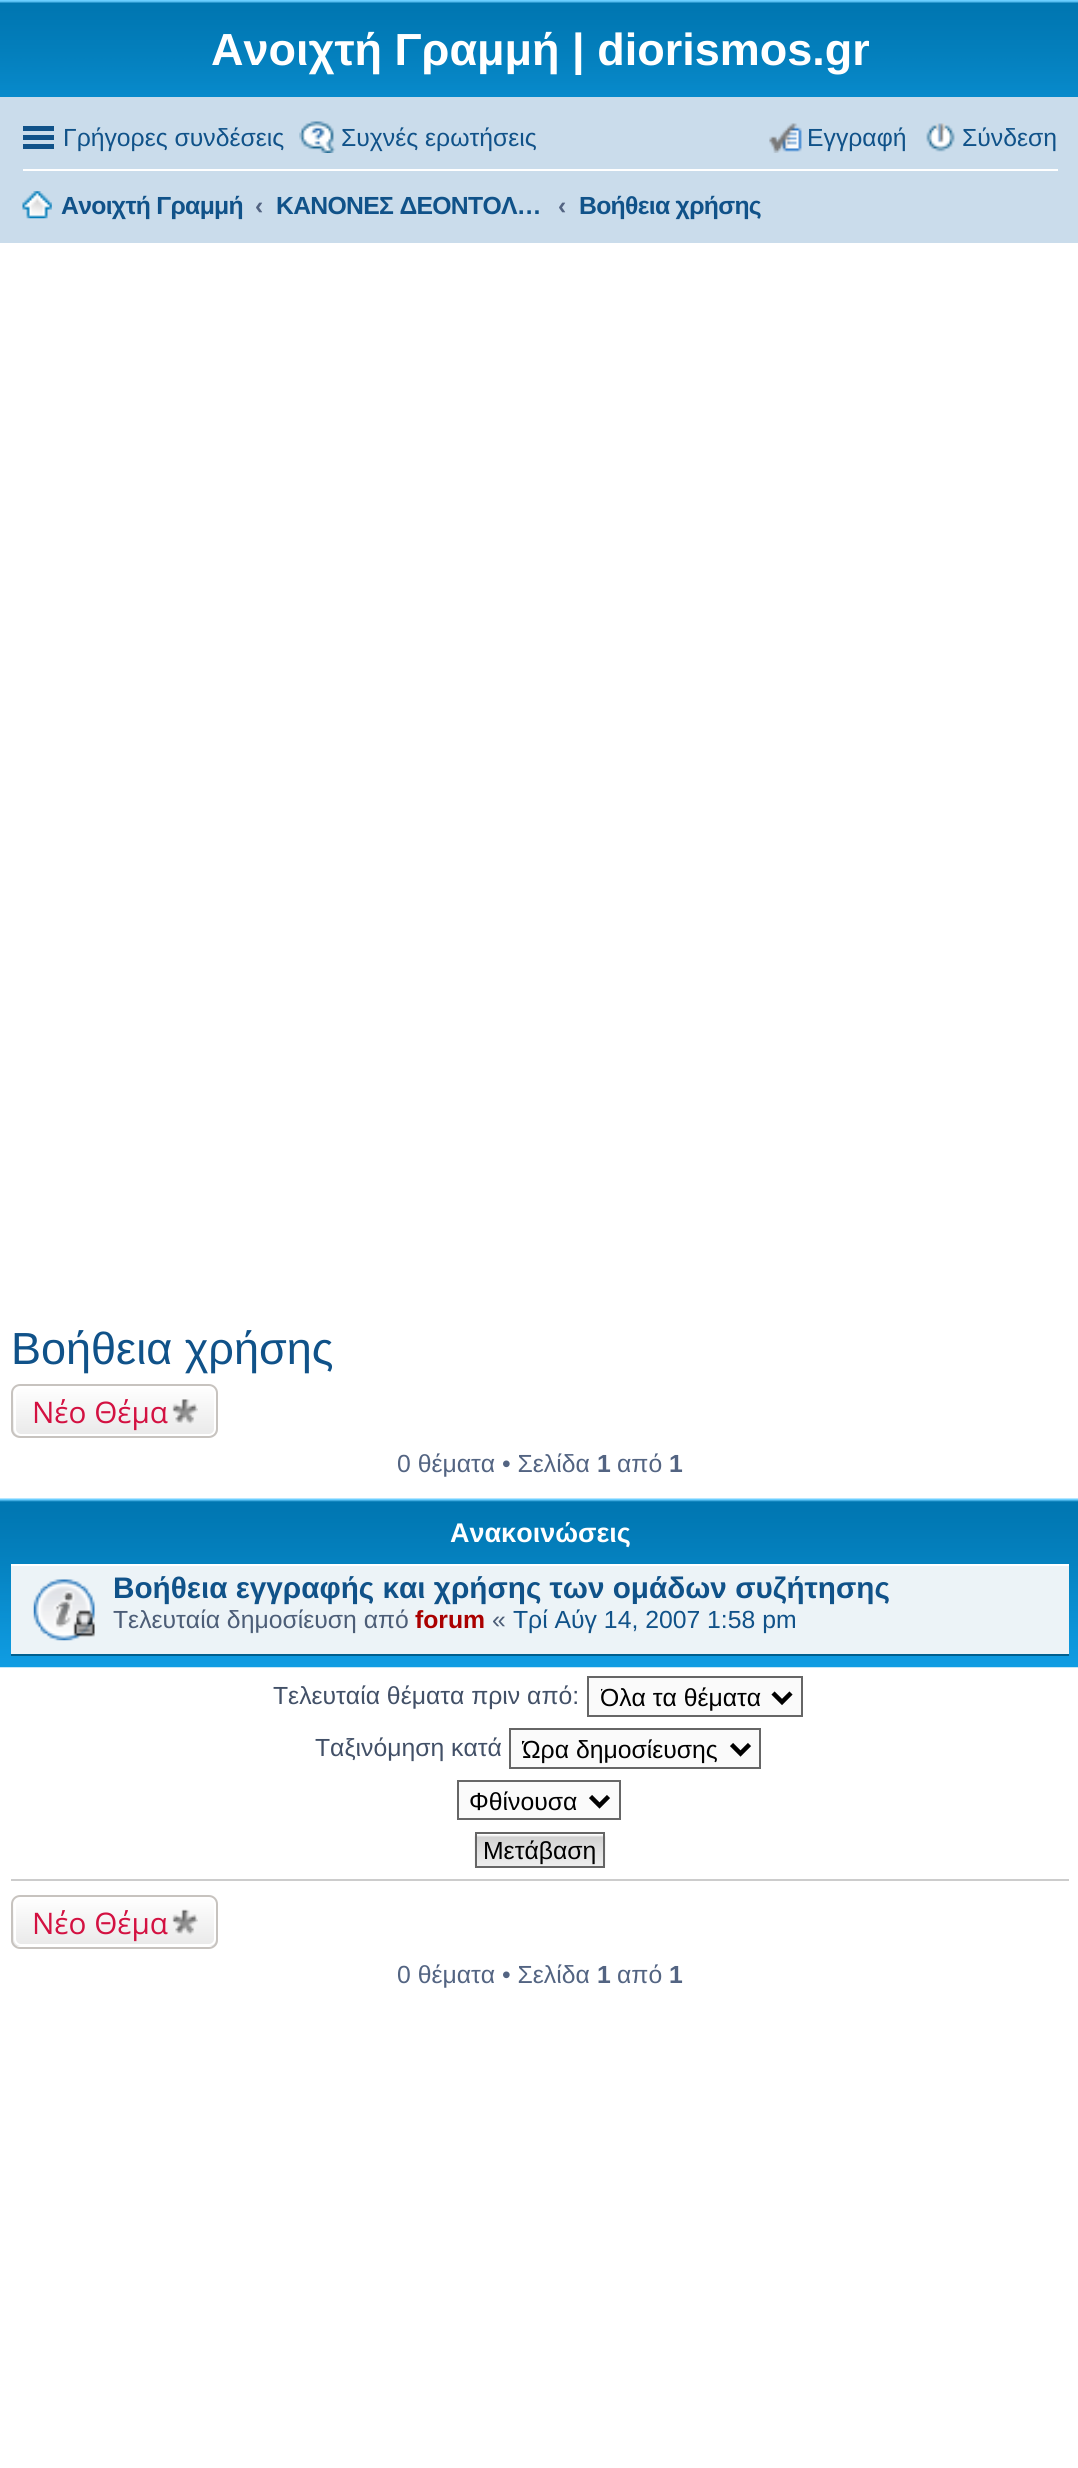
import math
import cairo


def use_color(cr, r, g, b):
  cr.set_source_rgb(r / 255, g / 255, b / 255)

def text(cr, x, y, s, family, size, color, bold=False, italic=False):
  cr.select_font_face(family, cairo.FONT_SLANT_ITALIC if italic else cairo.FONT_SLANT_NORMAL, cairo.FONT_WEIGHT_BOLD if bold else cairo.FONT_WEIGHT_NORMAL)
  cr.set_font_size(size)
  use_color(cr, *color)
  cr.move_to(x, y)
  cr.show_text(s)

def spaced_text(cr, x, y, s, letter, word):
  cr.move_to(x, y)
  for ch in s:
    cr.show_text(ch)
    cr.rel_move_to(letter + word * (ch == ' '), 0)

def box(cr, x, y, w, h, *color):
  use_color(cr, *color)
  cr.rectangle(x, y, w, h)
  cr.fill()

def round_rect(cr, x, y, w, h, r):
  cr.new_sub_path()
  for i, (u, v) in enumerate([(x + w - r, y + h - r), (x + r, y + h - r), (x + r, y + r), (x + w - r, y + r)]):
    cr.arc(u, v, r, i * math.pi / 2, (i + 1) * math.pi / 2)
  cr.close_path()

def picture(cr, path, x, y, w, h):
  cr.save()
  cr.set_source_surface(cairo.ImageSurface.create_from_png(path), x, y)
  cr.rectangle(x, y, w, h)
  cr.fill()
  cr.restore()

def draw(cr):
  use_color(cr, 255, 255, 255)
  cr.paint()
  picture(cr, "img_01.png", 0, 0, 1078, 97)
  box(cr, 0, 97, 1078, 146, 202, 220, 235)
  box(cr, 23, 126, 31, 5, 16, 82, 137)
  box(cr, 23, 135, 31, 5, 16, 82, 137)
  box(cr, 23, 144, 31, 5, 16, 82, 137)
  picture(cr, "img_02.png", 299, 121, 37, 32)
  picture(cr, "img_03.png", 769, 123, 33, 30)
  picture(cr, "img_04.png", 926, 123, 29, 29)
  box(cr, 23, 169, 1035, 2, 255, 255, 255)
  picture(cr, "img_05.png", 22, 191, 30, 28)
  cr.save()
  round_rect(cr, 11, 1384, 207, 54, 9)
  cr.clip()
  gradient = cairo.LinearGradient(115, 1386, 115, 1436)
  gradient.add_color_stop_rgba(0, 1, 1, 1, 1)
  gradient.add_color_stop_rgba(1, 0.914, 0.914, 0.914, 1)
  cr.set_source(gradient)
  cr.rectangle(11, 1386, 207, 50)
  cr.fill()
  cr.restore()
  round_rect(cr, 15, 1387, 200, 48, 6)
  cr.stroke()
  round_rect(cr, 12, 1385, 205, 52, 8)
  use_color(cr, 199, 195, 191)
  cr.stroke()
  picture(cr, "img_06.png", 172, 1399, 26, 25)
  picture(cr, "img_07.png", 0, 1498, 1078, 170)
  box(cr, 11, 1566, 1058, 88, 236, 243, 247)
  box(cr, 11, 1564, 1058, 2, 255, 255, 255)
  box(cr, 11, 1654, 1058, 2, 0, 96, 143)
  picture(cr, "img_08.png", 33, 1579, 62, 62)
  use_color(cr, 250, 250, 250)
  cr.rectangle(588, 1677, 214, 39)
  cr.fill_preserve()
  use_color(cr, 102, 102, 102)
  cr.stroke()
  cr.new_path()
  cr.move_to(773, 1693)
  cr.line_to(782, 1702)
  cr.line_to(791, 1693)
  use_color(cr, 0, 0, 0)
  cr.set_line_width(4.5)
  cr.stroke()
  use_color(cr, 250, 250, 250)
  cr.rectangle(510, 1729, 250, 39)
  cr.fill_preserve()
  use_color(cr, 102, 102, 102)
  cr.set_line_width(2)
  cr.stroke()
  cr.new_path()
  cr.move_to(731.5, 1744.5)
  cr.line_to(740.5, 1753.5)
  cr.line_to(749.5, 1744.5)
  use_color(cr, 0, 0, 0)
  cr.set_line_width(4.5)
  cr.stroke()
  use_color(cr, 250, 250, 250)
  cr.rectangle(458, 1781, 162, 38)
  cr.fill_preserve()
  use_color(cr, 102, 102, 102)
  cr.set_line_width(2)
  cr.stroke()
  cr.new_path()
  cr.move_to(590.5, 1796.5)
  cr.line_to(599.5, 1805.5)
  cr.line_to(608.5, 1796.5)
  use_color(cr, 0, 0, 0)
  cr.set_line_width(4.5)
  cr.stroke()
  picture(cr, "img_09.png", 474, 1834, 132, 34)
  cr.rectangle(476, 1833, 128, 34)
  use_color(cr, 102, 102, 102)
  cr.set_line_width(2)
  cr.stroke()
  box(cr, 11, 1879, 1058, 2, 204, 204, 204)
  cr.save()
  round_rect(cr, 11, 1895, 207, 54, 9)
  cr.clip()
  gradient = cairo.LinearGradient(115, 1897, 115, 1946)
  gradient.add_color_stop_rgba(0, 1, 1, 1, 1)
  gradient.add_color_stop_rgba(1, 0.914, 0.914, 0.914, 1)
  cr.set_source(gradient)
  cr.rectangle(11, 1897, 207, 49)
  cr.fill()
  cr.restore()
  round_rect(cr, 15, 1898, 200, 47, 6)
  use_color(cr, 255, 255, 255)
  cr.stroke()
  round_rect(cr, 12, 1896, 205, 52, 8)
  use_color(cr, 199, 195, 191)
  cr.stroke()
  picture(cr, "img_10.png", 172, 1909, 26, 26)
  text(cr, 211, 65, "Ανοιχτή Γραμμή | diorismos.gr", "Liberation Sans", 45, (255, 255, 255), bold=True)
  text(cr, 63, 146, "Γρήγορες συνδέσεις", "Liberation Sans", 24.75, (16, 82, 137))
  text(cr, 341, 146, "Συχνές ερωτήσεις", "Liberation Sans", 24.75, (16, 82, 137))
  text(cr, 807, 146, "Εγγραφή", "Liberation Sans", 24.75, (16, 82, 137))
  text(cr, 962, 146, "Σύνδεση", "Liberation Sans", 24.75, (16, 82, 137))
  cr.select_font_face("Liberation Sans", cairo.FONT_SLANT_NORMAL, cairo.FONT_WEIGHT_BOLD)
  spaced_text(cr, 61, 214, "Ανοιχτή Γραμμή", -0.7, 0)
  text(cr, 255, 214, "‹", "Liberation Sans", 24.75, (83, 100, 130), bold=True)
  use_color(cr, 16, 82, 137)
  spaced_text(cr, 276, 214, "ΚΑΝΟΝΕΣ ΔΕΟΝΤΟΛ…", -0.7, 0)
  text(cr, 558, 214, "‹", "Liberation Sans", 24.75, (83, 100, 130), bold=True)
  use_color(cr, 16, 82, 137)
  spaced_text(cr, 579, 214, "Βοήθεια χρήσης", -0.7, 0)
  text(cr, 11, 1364, "Βοήθεια χρήσης", "Liberation Sans", 45, (16, 82, 137))
  text(cr, 32, 1423, "Νέο Θέμα", "Open Sans", 29.7, (211, 17, 65))
  text(cr, 397, 1472, "0 θέματα • Σελίδα", "Liberation Sans", 24.75, (83, 100, 130))
  text(cr, 597, 1472, "1", "Liberation Sans", 24.75, (83, 100, 130), bold=True)
  text(cr, 617, 1472, "από", "Liberation Sans", 24.75, (83, 100, 130))
  text(cr, 669, 1472, "1", "Liberation Sans", 24.75, (83, 100, 130), bold=True)
  text(cr, 450, 1542, "Ανακοινώσεις", "Liberation Sans", 27, (255, 255, 255), bold=True)
  text(cr, 113, 1598, "Βοήθεια εγγραφής και χρήσης των ομάδων συζήτησης", "Liberation Sans", 29.7, (16, 82, 137), bold=True)
  text(cr, 113, 1628, "Τελευταία δημοσίευση από", "Liberation Sans", 24.75, (76, 93, 119))
  text(cr, 415, 1628, "forum", "Liberation Sans", 24.75, (170, 0, 0), bold=True)
  text(cr, 492, 1628, "«", "Liberation Sans", 24.75, (76, 93, 119))
  text(cr, 513, 1628, "Τρί Αύγ 14, 2007 1:58 pm", "Liberation Sans", 24.75, (16, 82, 137))
  text(cr, 273, 1704, "Τελευταία θέματα πριν από:", "Liberation Sans", 24.75, (66, 80, 103))
  cr.save()
  cr.rectangle(601, 1681, 162, 31)
  cr.clip()
  text(cr, 600, 1706, "Όλα τα θέματα", "Liberation Sans", 24.75, (0, 0, 0))
  cr.restore()
  text(cr, 315, 1756, "Ταξινόμηση κατά", "Liberation Sans", 24.75, (66, 80, 103))
  cr.save()
  cr.rectangle(522, 1733, 198, 31)
  cr.clip()
  text(cr, 522, 1758, "Ώρα δημοσίευσης", "Liberation Sans", 24.75, (0, 0, 0))
  cr.restore()
  text(cr, 469, 1810, "Φθίνουσα", "Liberation Sans", 24.75, (0, 0, 0))
  text(cr, 483, 1859, "Μετάβαση", "Liberation Sans", 24.75, (0, 0, 0))
  text(cr, 32, 1934, "Νέο Θέμα", "Open Sans", 29.7, (211, 17, 65))
  text(cr, 397, 1983, "0 θέματα • Σελίδα", "Liberation Sans", 24.75, (83, 100, 130))
  text(cr, 597, 1983, "1", "Liberation Sans", 24.75, (83, 100, 130), bold=True)
  text(cr, 617, 1983, "από", "Liberation Sans", 24.75, (83, 100, 130))
  text(cr, 669, 1983, "1", "Liberation Sans", 24.75, (83, 100, 130), bold=True)


surface = cairo.ImageSurface(cairo.FORMAT_RGB24, 1078, 2468)
cr = cairo.Context(surface)
options = cairo.FontOptions()
options.set_hint_metrics(cairo.HINT_METRICS_OFF)
options.set_hint_style(cairo.HINT_STYLE_NONE)
cr.set_font_options(options)
cr.set_miter_limit(4)
draw(cr)
surface.write_to_png("out.png")
